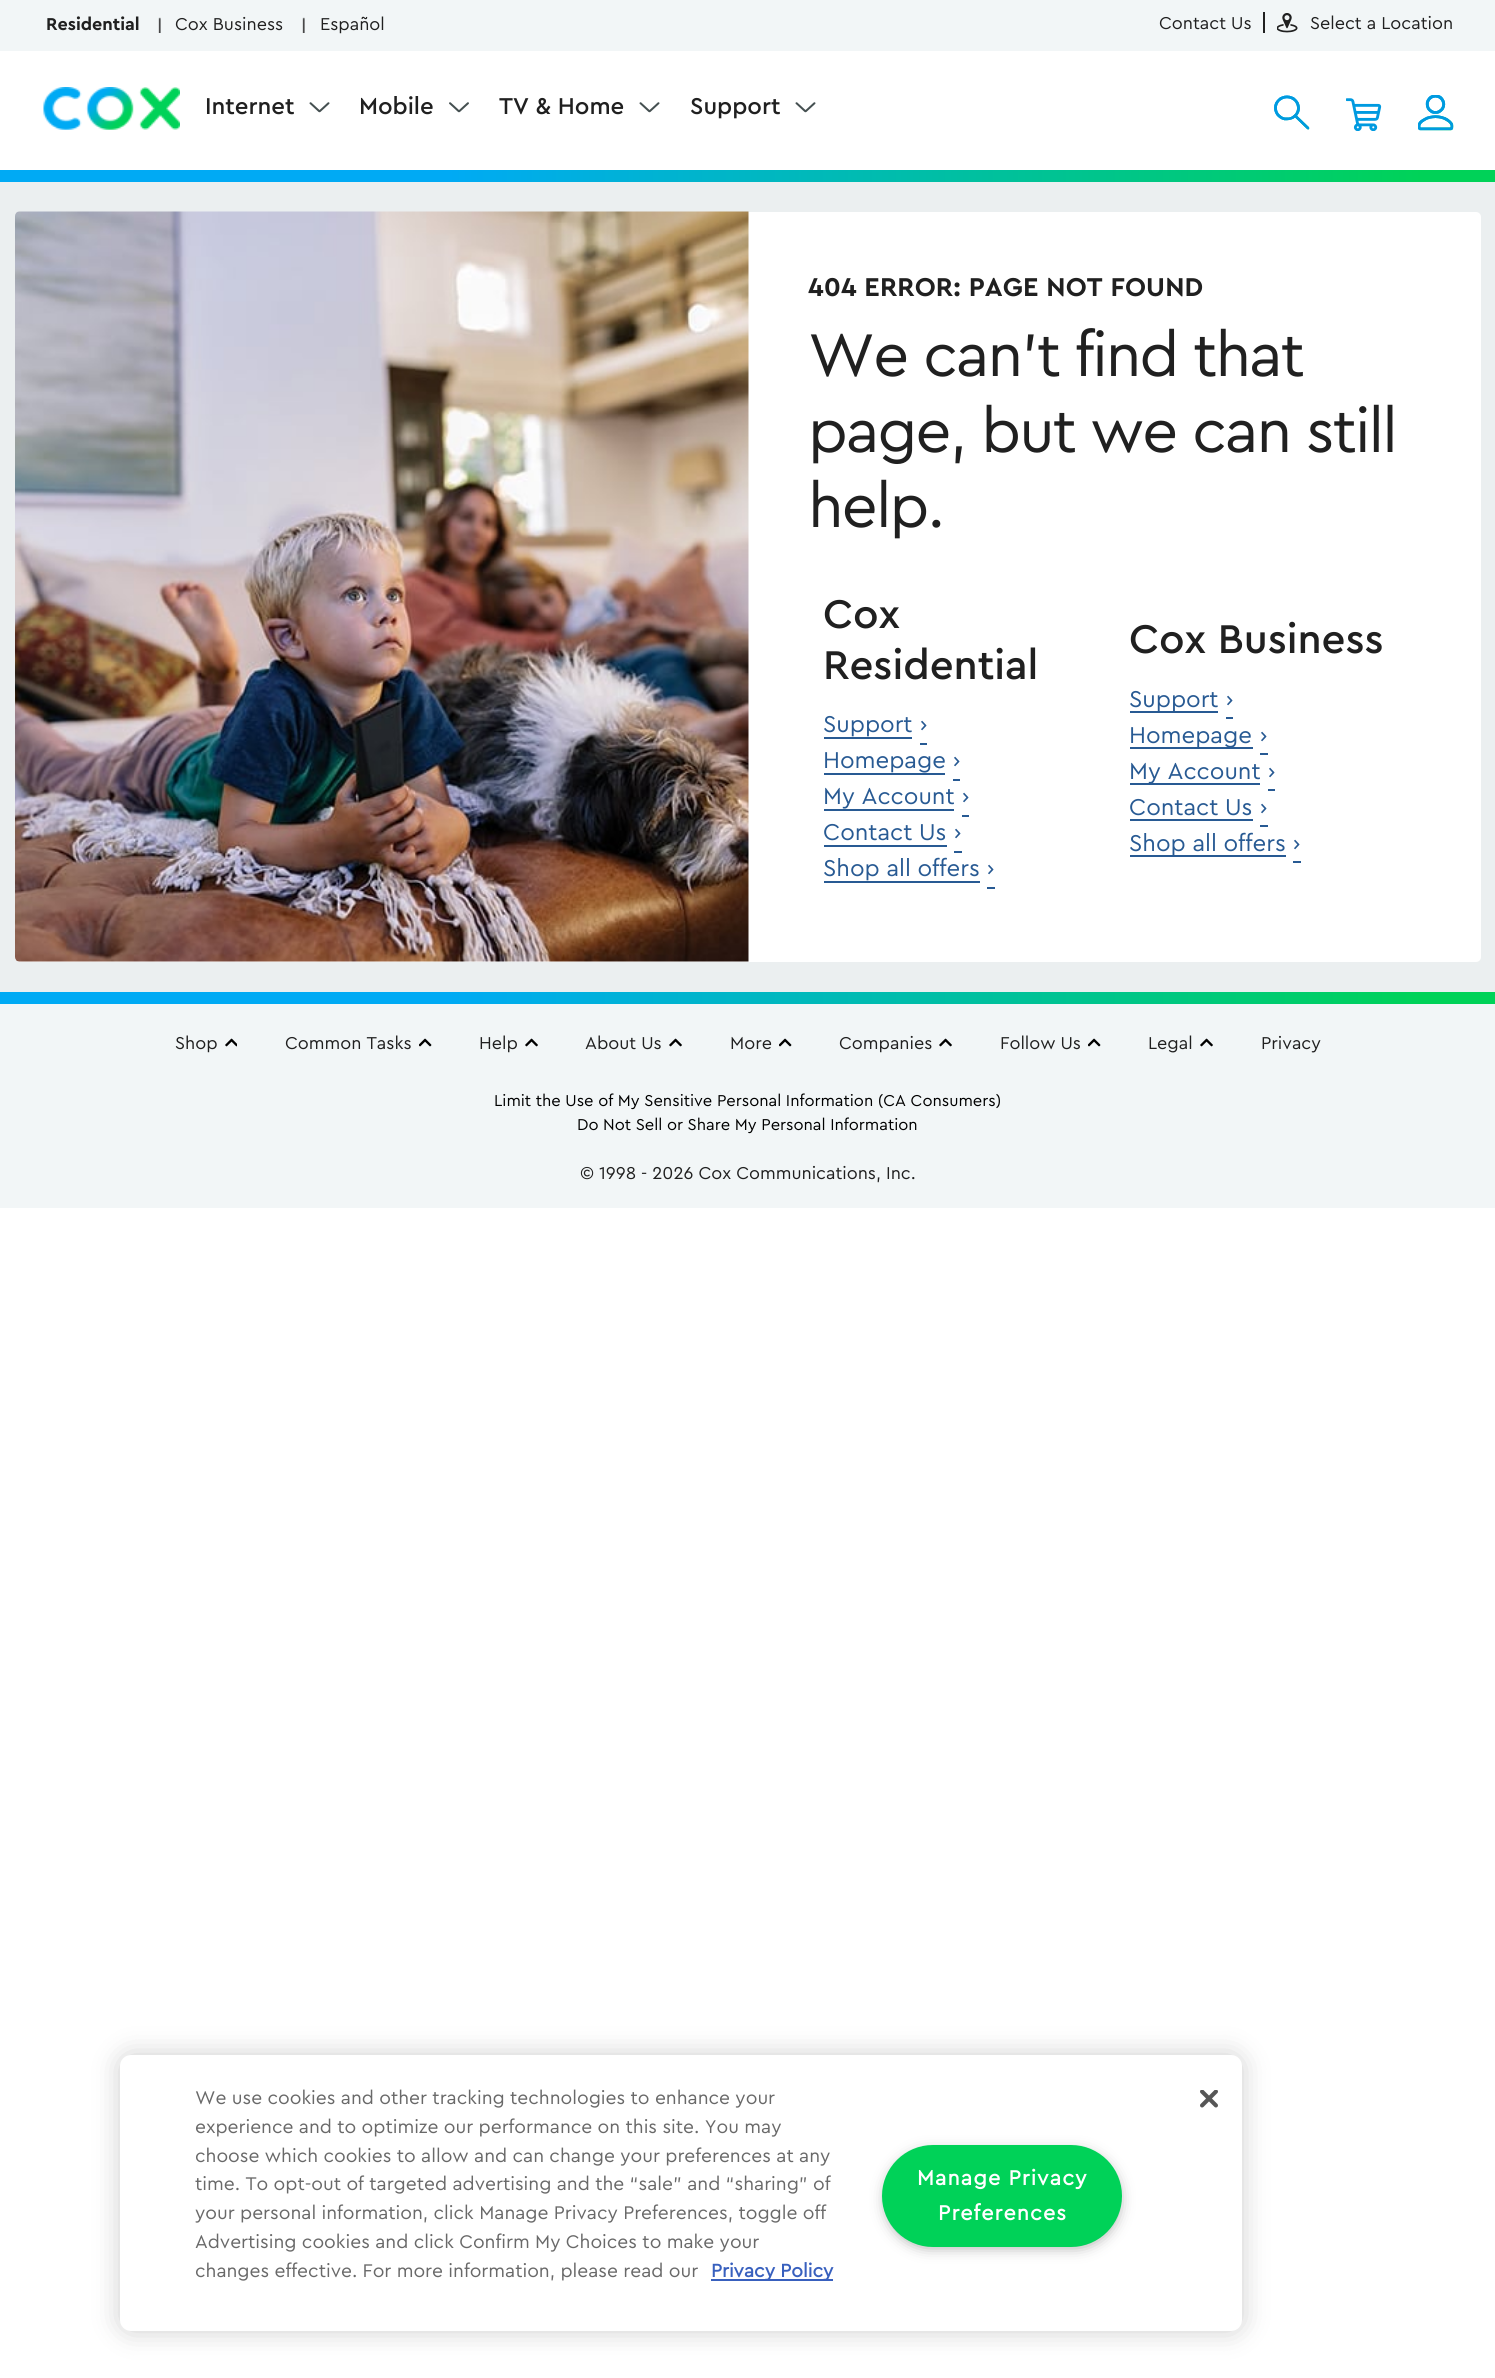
import math
import cairo


def use_color(cr, r, g, b):
  cr.set_source_rgb(r / 255, g / 255, b / 255)

def text(cr, x, y, s, family, size, color, bold=False, italic=False):
  cr.select_font_face(family, cairo.FONT_SLANT_ITALIC if italic else cairo.FONT_SLANT_NORMAL, cairo.FONT_WEIGHT_BOLD if bold else cairo.FONT_WEIGHT_NORMAL)
  cr.set_font_size(size)
  use_color(cr, *color)
  cr.move_to(x, y)
  cr.show_text(s)

def spaced_text(cr, x, y, s, letter, word):
  cr.move_to(x, y)
  for ch in s:
    cr.show_text(ch)
    cr.rel_move_to(letter + word * (ch == ' '), 0)

def box(cr, x, y, w, h, *color):
  use_color(cr, *color)
  cr.rectangle(x, y, w, h)
  cr.fill()

def round_rect(cr, x, y, w, h, r):
  cr.new_sub_path()
  for i, (u, v) in enumerate([(x + w - r, y + h - r), (x + r, y + h - r), (x + r, y + r), (x + w - r, y + r)]):
    cr.arc(u, v, r, i * math.pi / 2, (i + 1) * math.pi / 2)
  cr.close_path()

def shadow(cr, x, y, w, h, r, blur, alpha):
  cr.push_group_with_content(cairo.CONTENT_ALPHA)
  cr.set_operator(cairo.OPERATOR_SOURCE)
  for i in range(15, -16, -2):
    e = blur * i / 6
    if min(w, h) + 2 * e > 0:
      cr.set_source_rgba(0, 0, 0, alpha * math.erfc((i - 1) / 8.5) / 2)
      round_rect(cr, x - e, y - e, w + 2 * e, h + 2 * e, max(0, min(r + e + blur * .6, min(w, h) / 2 + e)))
      cr.fill()
  cr.mask(cr.pop_group())

def picture(cr, path, x, y, w, h):
  cr.save()
  cr.set_source_surface(cairo.ImageSurface.create_from_png(path), x, y)
  cr.rectangle(x, y, w, h)
  cr.fill()
  cr.restore()

def draw(cr):
  use_color(cr, 255, 255, 255)
  cr.paint()
  box(cr, 0, 182, 1495, 810, 235, 239, 240)
  gradient = cairo.LinearGradient(0, 91, 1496, 91)
  gradient.add_color_stop_rgba(0.3, 0, 0.667, 0.957, 1)
  gradient.add_color_stop_rgba(0.95, 0, 0.824, 0.345, 1)
  gradient.add_color_stop_rgba(1, 0, 0.824, 0.345, 1)
  cr.set_source(gradient)
  cr.rectangle(0, 170, 1495, 12)
  cr.fill()
  box(cr, 0, 0, 1495, 51, 242, 246, 247)
  picture(cr, "img_01.png", 158, 17, 3, 16)
  picture(cr, "img_01.png", 302, 17, 3, 16)
  box(cr, 1263, 12, 2, 21, 32, 32, 32)
  picture(cr, "img_02.png", 1277, 13, 21, 20)
  picture(cr, "img_03.png", 43, 87, 137, 43)
  picture(cr, "img_04.png", 309, 102, 21, 11)
  picture(cr, "img_05.png", 449, 102, 20, 11)
  picture(cr, "img_04.png", 639, 102, 21, 11)
  picture(cr, "img_04.png", 795, 102, 21, 11)
  picture(cr, "img_06.png", 1274, 95, 36, 35)
  picture(cr, "img_07.png", 1346, 98, 36, 33)
  picture(cr, "img_08.png", 1418, 95, 36, 36)
  use_color(cr, 255, 255, 255)
  round_rect(cr, 15, 212, 1466, 750, 5)
  cr.fill()
  picture(cr, "img_09.png", 15, 211, 734, 751)
  box(cr, 824, 737, 88, 2, 40, 90, 147)
  box(cr, 920, 743, 7, 2, 40, 90, 147)
  box(cr, 824, 773, 121, 2, 40, 90, 147)
  box(cr, 953, 779, 7, 2, 40, 90, 147)
  box(cr, 824, 809, 130, 2, 40, 90, 147)
  box(cr, 962, 815, 7, 2, 40, 90, 147)
  box(cr, 824, 845, 123, 2, 40, 90, 147)
  box(cr, 954, 851, 8, 2, 40, 90, 147)
  box(cr, 824, 881, 156, 2, 40, 90, 147)
  box(cr, 987, 887, 8, 2, 40, 90, 147)
  box(cr, 1130, 711, 88, 2, 40, 90, 147)
  box(cr, 1226, 717, 7, 2, 40, 90, 147)
  box(cr, 1130, 747, 123, 2, 40, 90, 147)
  box(cr, 1260, 753, 8, 2, 40, 90, 147)
  box(cr, 1130, 783, 130, 2, 40, 90, 147)
  box(cr, 1268, 789, 7, 2, 40, 90, 147)
  box(cr, 1130, 819, 123, 2, 40, 90, 147)
  box(cr, 1260, 825, 8, 2, 40, 90, 147)
  box(cr, 1130, 855, 156, 2, 40, 90, 147)
  box(cr, 1293, 861, 8, 2, 40, 90, 147)
  gradient = cairo.LinearGradient(0, 1100, 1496, 1100)
  gradient.add_color_stop_rgba(0.3, 0, 0.667, 0.957, 1)
  gradient.add_color_stop_rgba(0.95, 0, 0.824, 0.345, 1)
  gradient.add_color_stop_rgba(1, 0, 0.824, 0.345, 1)
  cr.set_source(gradient)
  cr.rectangle(0, 992, 1495, 12)
  cr.fill()
  box(cr, 0, 1004, 1495, 204, 242, 246, 247)
  picture(cr, "img_10.png", 225, 1038, 12, 9)
  picture(cr, "img_11.png", 419, 1038, 13, 9)
  picture(cr, "img_12.png", 525, 1038, 13, 9)
  picture(cr, "img_12.png", 669, 1038, 13, 9)
  picture(cr, "img_11.png", 779, 1038, 13, 9)
  picture(cr, "img_12.png", 939, 1038, 13, 9)
  picture(cr, "img_11.png", 1088, 1038, 13, 9)
  picture(cr, "img_12.png", 1200, 1038, 13, 9)
  use_color(cr, 0, 0, 0)
  shadow(cr, 120, 2055, 1122, 276, 11, 13.5, 0.2)
  use_color(cr, 255, 255, 255)
  round_rect(cr, 120, 2055, 1122, 276, 11)
  cr.fill()
  box(cr, 711, 2279, 122, 2, 56, 96, 190)
  use_color(cr, 153, 153, 153)
  shadow(cr, 887, 2153, 231, 93, 46.5, 7.5, 1)
  use_color(cr, 0, 210, 88)
  round_rect(cr, 883, 2146, 238, 100, 50)
  cr.fill_preserve()
  cr.stroke()
  picture(cr, "img_13.png", 1200, 2090, 18, 18)
  text(cr, 46, 30, "Residential", "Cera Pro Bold", 18, (32, 32, 32), bold=True)
  text(cr, 175, 30, "Cox Business", "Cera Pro", 18, (32, 32, 32))
  text(cr, 320, 30, "Español", "Cera Pro", 18, (32, 32, 32))
  text(cr, 1159, 29, "Contact Us", "Cera Pro", 18, (32, 32, 32))
  text(cr, 1310, 29, "Select a Location", "Cera Pro", 18, (32, 32, 32))
  text(cr, 205, 114, "Internet", "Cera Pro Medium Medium", 24, (32, 32, 32))
  text(cr, 359, 114, "Mobile", "Cera Pro Medium Medium", 24, (32, 32, 32))
  text(cr, 499, 114, "TV & Home", "Cera Pro Medium Medium", 24, (32, 32, 32))
  text(cr, 690, 114, "Support", "Cera Pro Medium Medium", 24, (32, 32, 32))
  cr.select_font_face("Cera Pro Bold", cairo.FONT_SLANT_NORMAL, cairo.FONT_WEIGHT_BOLD)
  cr.set_font_size(27)
  spaced_text(cr, 808, 296, "404 ERROR: PAGE NOT FOUND", 0.15, 0)
  cr.select_font_face("Cera Pro")
  cr.set_font_size(63)
  spaced_text(cr, 808, 376, "We can't find that", -1.8, 0)
  spaced_text(cr, 808, 452, "page, but we can still", -1.8, 0)
  spaced_text(cr, 808, 527, "help.", -1.8, 0)
  text(cr, 823, 628, "Cox", "Cera Pro Medium Medium", 42, (32, 32, 32))
  text(cr, 823, 679, "Residential", "Cera Pro Medium Medium", 42, (32, 32, 32))
  text(cr, 823, 732, "Support", "Cera Pro", 24, (40, 90, 147))
  text(cr, 920, 732, "›", "Cera Pro", 24, (40, 90, 147))
  text(cr, 823, 768, "Homepage", "Cera Pro", 24, (40, 90, 147))
  text(cr, 953, 768, "›", "Cera Pro", 24, (40, 90, 147))
  text(cr, 823, 804, "My Account", "Cera Pro", 24, (40, 90, 147))
  text(cr, 962, 804, "›", "Cera Pro", 24, (40, 90, 147))
  text(cr, 823, 840, "Contact Us", "Cera Pro", 24, (40, 90, 147))
  text(cr, 954, 840, "›", "Cera Pro", 24, (40, 90, 147))
  text(cr, 823, 876, "Shop all offers", "Cera Pro", 24, (40, 90, 147))
  text(cr, 987, 876, "›", "Cera Pro", 24, (40, 90, 147))
  text(cr, 1129, 653, "Cox Business", "Cera Pro Medium Medium", 42, (32, 32, 32))
  text(cr, 1129, 707, "Support", "Cera Pro", 24, (40, 90, 147))
  text(cr, 1226, 707, "›", "Cera Pro", 24, (40, 90, 147))
  text(cr, 1129, 743, "Homepage", "Cera Pro", 24, (40, 90, 147))
  text(cr, 1260, 743, "›", "Cera Pro", 24, (40, 90, 147))
  text(cr, 1129, 779, "My Account", "Cera Pro", 24, (40, 90, 147))
  text(cr, 1268, 779, "›", "Cera Pro", 24, (40, 90, 147))
  text(cr, 1129, 815, "Contact Us", "Cera Pro", 24, (40, 90, 147))
  text(cr, 1260, 815, "›", "Cera Pro", 24, (40, 90, 147))
  text(cr, 1129, 851, "Shop all offers", "Cera Pro", 24, (40, 90, 147))
  text(cr, 1293, 851, "›", "Cera Pro", 24, (40, 90, 147))
  text(cr, 175, 1049, "Shop", "Cera Pro", 18, (32, 32, 32))
  text(cr, 285, 1049, "Common Tasks", "Cera Pro", 18, (32, 32, 32))
  text(cr, 479, 1049, "Help", "Cera Pro", 18, (32, 32, 32))
  text(cr, 585, 1049, "About Us", "Cera Pro", 18, (32, 32, 32))
  text(cr, 730, 1049, "More", "Cera Pro", 18, (32, 32, 32))
  text(cr, 839, 1049, "Companies", "Cera Pro", 18, (32, 32, 32))
  text(cr, 1000, 1049, "Follow Us", "Cera Pro", 18, (32, 32, 32))
  text(cr, 1148, 1049, "Legal", "Cera Pro", 18, (32, 32, 32))
  text(cr, 1261, 1049, "Privacy", "Cera Pro", 18, (32, 32, 32))
  text(cr, 494, 1106, "Limit the Use of My Sensitive Personal Information (CA Consumers)", "Cera Pro", 16.5, (0, 0, 0))
  text(cr, 577, 1130, "Do Not Sell or Share My Personal Information", "Cera Pro", 16.5, (0, 0, 0))
  text(cr, 580, 1179, "© 1998 - 2026 Cox Communications, Inc.", "Cera Pro", 18, (32, 32, 32))
  text(cr, 195, 2104, "We use cookies and other tracking technologies to enhance your", "Cera Pro", 19.2, (105, 105, 105))
  text(cr, 195, 2133, "experience and to optimize our performance on this site. You may", "Cera Pro", 19.2, (105, 105, 105))
  text(cr, 195, 2162, "choose which cookies to allow and can change your preferences at any", "Cera Pro", 19.2, (105, 105, 105))
  text(cr, 195, 2190, "time. To opt-out of targeted advertising and the “sale” and “sharing” of", "Cera Pro", 19.2, (105, 105, 105))
  text(cr, 195, 2219, "your personal information, click Manage Privacy Preferences, toggle off", "Cera Pro", 19.2, (105, 105, 105))
  text(cr, 195, 2248, "Advertising cookies and click Confirm My Choices to make your", "Cera Pro", 19.2, (105, 105, 105))
  text(cr, 195, 2277, "changes effective. For more information, please read our", "Cera Pro", 19.2, (105, 105, 105))
  text(cr, 711, 2277, "Privacy Policy", "Cera Pro", 19.2, (56, 96, 190), bold=True)
  cr.set_font_size(21.5)
  use_color(cr, 255, 255, 255)
  spaced_text(cr, 917, 2185, "Manage Privacy", 1.1, 0)
  spaced_text(cr, 938, 2220, "Preferences", 1.1, 0)


surface = cairo.ImageSurface(cairo.FORMAT_RGB24, 1495, 2378)
cr = cairo.Context(surface)
options = cairo.FontOptions()
options.set_hint_metrics(cairo.HINT_METRICS_OFF)
options.set_hint_style(cairo.HINT_STYLE_NONE)
cr.set_font_options(options)
cr.set_miter_limit(4)
draw(cr)
surface.write_to_png("out.png")
